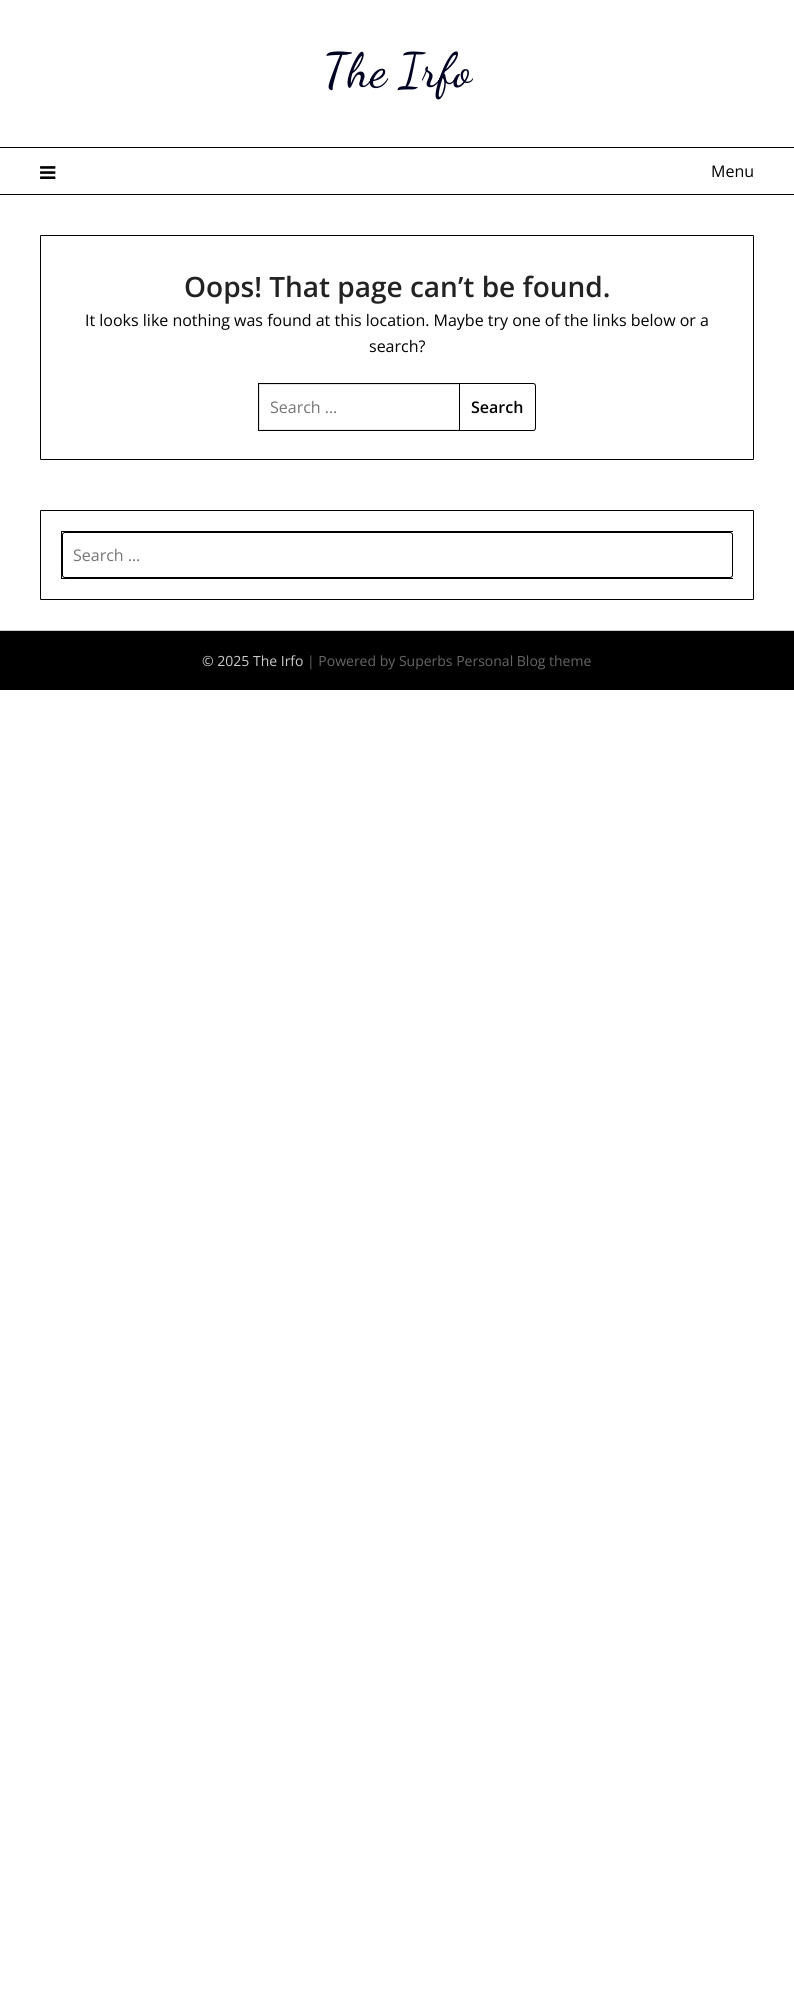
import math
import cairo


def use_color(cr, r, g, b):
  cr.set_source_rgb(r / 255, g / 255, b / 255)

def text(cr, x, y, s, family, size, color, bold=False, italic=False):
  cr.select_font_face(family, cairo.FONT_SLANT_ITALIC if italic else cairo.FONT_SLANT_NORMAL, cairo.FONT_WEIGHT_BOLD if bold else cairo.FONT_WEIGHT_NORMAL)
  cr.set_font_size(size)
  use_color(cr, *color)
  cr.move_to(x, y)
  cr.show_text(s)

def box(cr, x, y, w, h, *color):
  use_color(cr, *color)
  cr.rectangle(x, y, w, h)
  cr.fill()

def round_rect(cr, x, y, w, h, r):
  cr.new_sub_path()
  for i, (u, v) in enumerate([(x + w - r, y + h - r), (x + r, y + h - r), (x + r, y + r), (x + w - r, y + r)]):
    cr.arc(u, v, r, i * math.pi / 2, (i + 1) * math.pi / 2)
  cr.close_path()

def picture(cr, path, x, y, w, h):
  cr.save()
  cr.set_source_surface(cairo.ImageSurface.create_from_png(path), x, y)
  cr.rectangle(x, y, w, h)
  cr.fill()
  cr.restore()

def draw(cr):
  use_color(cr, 255, 255, 255)
  cr.paint()
  box(cr, 0, 147, 794, 1, 0, 0, 0)
  box(cr, 0, 194, 794, 1, 0, 0, 0)
  picture(cr, "img_01.png", 40, 166, 16, 13)
  round_rect(cr, 40.5, 235.5, 713, 224, 0.5)
  cr.set_line_width(1)
  cr.stroke()
  box(cr, 258, 383, 202, 1, 0, 0, 0)
  box(cr, 258, 430, 202, 1, 0, 0, 0)
  box(cr, 258, 383, 1, 48, 0, 0, 0)
  cr.rectangle(259.5, 384.5, 200, 45)
  use_color(cr, 229, 230, 233)
  cr.stroke()
  cr.new_path()
  cr.move_to(459.5, 383.5)
  cr.line_to(533, 383.5)
  cr.curve_to(534.5, 383.5, 535.5, 384.5, 535.5, 386)
  cr.line_to(535.5, 428)
  cr.curve_to(535.5, 429.5, 534.5, 430.5, 533, 430.5)
  cr.line_to(459.5, 430.5)
  cr.close_path()
  use_color(cr, 0, 0, 0)
  cr.stroke()
  round_rect(cr, 40.5, 510.5, 713, 89, 0.5)
  cr.stroke()
  box(cr, 61, 531, 672, 1, 0, 0, 0)
  box(cr, 61, 578, 672, 1, 0, 0, 0)
  box(cr, 61, 531, 1, 48, 0, 0, 0)
  round_rect(cr, 62.5, 532.5, 670, 45, 2.5)
  cr.stroke()
  box(cr, 0, 631, 794, 59, 0, 0, 0)
  box(cr, 0, 630, 794, 1, 204, 204, 204)
  text(cr, 323, 86, "The Irfo", "Dancing Script Medium", 48, (0, 2, 34))
  text(cr, 711, 177, "Menu", "Open Sans", 16, (0, 0, 0))
  text(cr, 184, 297, "Oops! That page can’t be found.", "Open Sans SemiBold", 28, (34, 34, 34))
  text(cr, 85, 326, "It looks like nothing was found at this location. Maybe try one of the links below or a", "Open Sans", 16, (0, 0, 0))
  text(cr, 369, 352, "search?", "Open Sans", 16, (0, 0, 0))
  text(cr, 270, 413, "Search …", "Open Sans", 16, (117, 117, 117))
  text(cr, 471, 413, "Search", "Open Sans SemiBold", 16, (0, 0, 0))
  text(cr, 73, 561, "Search …", "Open Sans", 16, (117, 117, 117))
  text(cr, 202, 666, "© 2025 The Irfo", "Open Sans", 14, (204, 204, 204))
  text(cr, 307, 666, "| Powered by Superbs Personal Blog theme", "Open Sans", 14, (102, 102, 102))


surface = cairo.ImageSurface(cairo.FORMAT_RGB24, 794, 2001)
cr = cairo.Context(surface)
options = cairo.FontOptions()
options.set_hint_metrics(cairo.HINT_METRICS_OFF)
options.set_hint_style(cairo.HINT_STYLE_NONE)
cr.set_font_options(options)
cr.set_miter_limit(4)
draw(cr)
surface.write_to_png("out.png")
